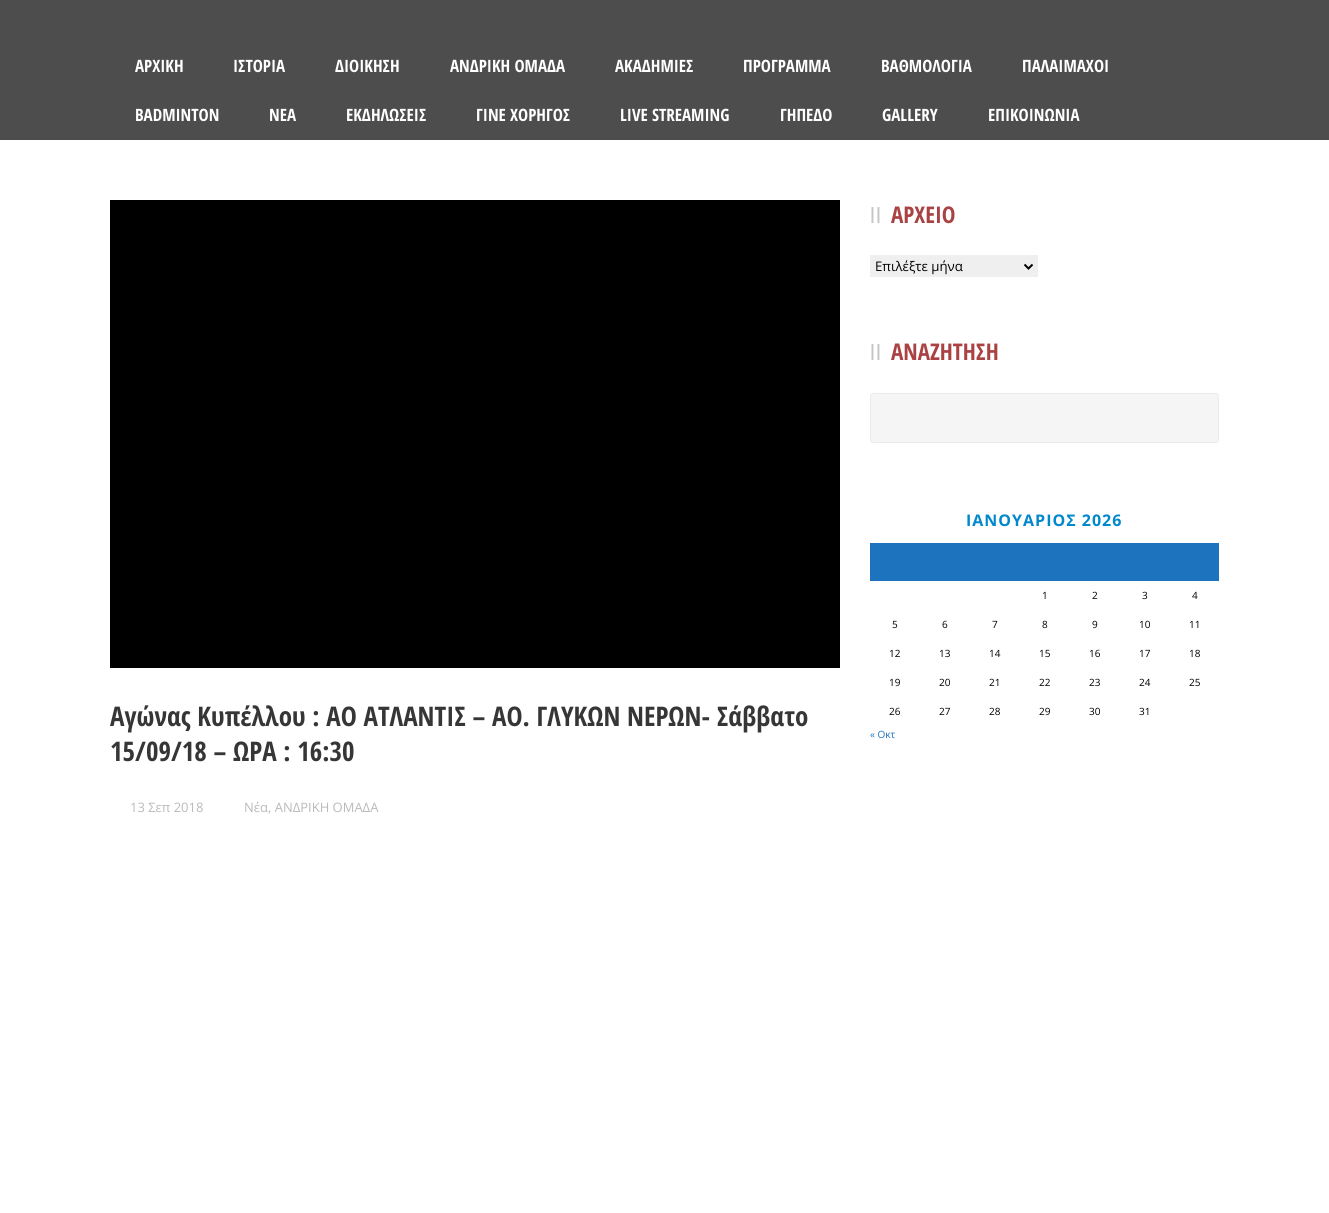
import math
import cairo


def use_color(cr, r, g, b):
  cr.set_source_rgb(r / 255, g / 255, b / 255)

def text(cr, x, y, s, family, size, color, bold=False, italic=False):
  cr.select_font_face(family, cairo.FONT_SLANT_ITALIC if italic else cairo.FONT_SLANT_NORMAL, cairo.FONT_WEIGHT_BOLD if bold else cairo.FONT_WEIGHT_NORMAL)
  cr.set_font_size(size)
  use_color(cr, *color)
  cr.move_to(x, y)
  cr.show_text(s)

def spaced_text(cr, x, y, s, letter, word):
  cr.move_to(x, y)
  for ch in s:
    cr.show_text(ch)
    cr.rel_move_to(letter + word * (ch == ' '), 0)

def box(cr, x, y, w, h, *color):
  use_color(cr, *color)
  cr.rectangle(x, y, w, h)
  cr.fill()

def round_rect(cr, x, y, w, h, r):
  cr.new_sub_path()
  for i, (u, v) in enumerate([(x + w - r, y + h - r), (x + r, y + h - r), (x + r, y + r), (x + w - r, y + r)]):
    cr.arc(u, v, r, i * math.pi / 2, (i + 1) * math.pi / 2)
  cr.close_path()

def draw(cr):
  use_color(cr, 255, 255, 255)
  cr.paint()
  box(cr, 0, 0, 1329, 140, 77, 77, 77)
  box(cr, 870, 255, 168, 22, 239, 239, 239)
  cr.new_path()
  cr.move_to(1024.5, 264.5)
  cr.line_to(1028.5, 268.5)
  cr.line_to(1032.5, 264.5)
  use_color(cr, 0, 0, 0)
  cr.stroke()
  use_color(cr, 245, 245, 245)
  round_rect(cr, 870.5, 393.5, 348, 49, 2.5)
  cr.fill_preserve()
  use_color(cr, 235, 235, 235)
  cr.set_line_width(1)
  cr.stroke()
  box(cr, 870, 543, 349, 38, 30, 115, 190)
  box(cr, 110, 200, 730, 468, 0, 0, 0)
  text(cr, 135, 72, "ΑΡΧΙΚΗ", "Open Sans Condensed", 17, (255, 255, 255), bold=True)
  text(cr, 233, 72, "ΙΣΤΟΡΙΑ", "Open Sans Condensed", 17, (255, 255, 255), bold=True)
  text(cr, 335, 72, "ΔΙΟΙΚΗΣΗ", "Open Sans Condensed", 17, (255, 255, 255), bold=True)
  text(cr, 450, 72, "ΑΝΔΡΙΚΗ ΟΜΑΔΑ", "Open Sans Condensed", 17, (255, 255, 255), bold=True)
  text(cr, 615, 72, "ΑΚΑΔΗΜΙΕΣ", "Open Sans Condensed", 17, (255, 255, 255), bold=True)
  text(cr, 743, 72, "ΠΡΟΓΡΑΜΜΑ", "Open Sans Condensed", 17, (255, 255, 255), bold=True)
  text(cr, 881, 72, "ΒΑΘΜΟΛΟΓΙΑ", "Open Sans Condensed", 17, (255, 255, 255), bold=True)
  text(cr, 1022, 72, "ΠΑΛΑΙΜΑΧΟΙ", "Open Sans Condensed", 17, (255, 255, 255), bold=True)
  text(cr, 135, 121, "BADMINTON", "Open Sans Condensed", 17, (255, 255, 255), bold=True)
  text(cr, 269, 121, "ΝΕΑ", "Open Sans Condensed", 17, (255, 255, 255), bold=True)
  text(cr, 346, 121, "ΕΚΔΗΛΩΣΕΙΣ", "Open Sans Condensed", 17, (255, 255, 255), bold=True)
  text(cr, 476, 121, "ΓΙΝΕ ΧΟΡΗΓΟΣ", "Open Sans Condensed", 17, (255, 255, 255), bold=True)
  text(cr, 620, 121, "LIVE STREAMING", "Open Sans Condensed", 17, (255, 255, 255), bold=True)
  text(cr, 780, 121, "ΓΗΠΕΔΟ", "Open Sans Condensed", 17, (255, 255, 255), bold=True)
  text(cr, 882, 121, "GALLERY", "Open Sans Condensed", 17, (255, 255, 255), bold=True)
  text(cr, 988, 121, "ΕΠΙΚΟΙΝΩΝΙΑ", "Open Sans Condensed", 17, (255, 255, 255), bold=True)
  cr.select_font_face("Liberation Sans")
  cr.set_font_size(22)
  use_color(cr, 197, 197, 197)
  spaced_text(cr, 870, 223, "ll", 1, 0)
  text(cr, 891, 223, "ΑΡΧΕΙΟ", "Open Sans Condensed", 23, (170, 66, 67), bold=True)
  text(cr, 875, 271, "Επιλέξτε μήνα", "Open Sans", 13.25, (0, 0, 0))
  cr.select_font_face("Liberation Sans")
  cr.set_font_size(22)
  use_color(cr, 197, 197, 197)
  spaced_text(cr, 870, 360, "ll", 1, 0)
  text(cr, 891, 360, "ΑΝΑΖΗΤΗΣΗ", "Open Sans Condensed", 23, (170, 66, 67), bold=True)
  cr.select_font_face("Open Sans", cairo.FONT_SLANT_NORMAL, cairo.FONT_WEIGHT_BOLD)
  cr.set_font_size(16)
  use_color(cr, 0, 136, 204)
  spaced_text(cr, 966, 526, "ΙΑΝΟΥΑΡΙΟΣ 2026", 1, 0)
  text(cr, 1042, 599, "1", "Open Sans", 10, (0, 0, 0))
  text(cr, 1092, 599, "2", "Open Sans", 10, (0, 0, 0))
  text(cr, 1142, 599, "3", "Open Sans", 10, (0, 0, 0))
  text(cr, 1192, 599, "4", "Open Sans", 10, (0, 0, 0))
  text(cr, 892, 628, "5", "Open Sans", 10, (0, 0, 0))
  text(cr, 942, 628, "6", "Open Sans", 10, (0, 0, 0))
  text(cr, 992, 628, "7", "Open Sans", 10, (0, 0, 0))
  text(cr, 1042, 628, "8", "Open Sans", 10, (0, 0, 0))
  text(cr, 1092, 628, "9", "Open Sans", 10, (0, 0, 0))
  text(cr, 1139, 628, "10", "Open Sans", 10, (0, 0, 0))
  text(cr, 1189, 628, "11", "Open Sans", 10, (0, 0, 0))
  text(cr, 889, 657, "12", "Open Sans", 10, (0, 0, 0))
  text(cr, 939, 657, "13", "Open Sans", 10, (0, 0, 0))
  text(cr, 989, 657, "14", "Open Sans", 10, (0, 0, 0))
  text(cr, 1039, 657, "15", "Open Sans", 10, (0, 0, 0))
  text(cr, 1089, 657, "16", "Open Sans", 10, (0, 0, 0))
  text(cr, 1139, 657, "17", "Open Sans", 10, (0, 0, 0))
  text(cr, 1189, 657, "18", "Open Sans", 10, (0, 0, 0))
  text(cr, 889, 686, "19", "Open Sans", 10, (0, 0, 0))
  text(cr, 939, 686, "20", "Open Sans", 10, (0, 0, 0))
  text(cr, 989, 686, "21", "Open Sans", 10, (0, 0, 0))
  text(cr, 1039, 686, "22", "Open Sans", 10, (0, 0, 0))
  text(cr, 1089, 686, "23", "Open Sans", 10, (0, 0, 0))
  text(cr, 1139, 686, "24", "Open Sans", 10, (0, 0, 0))
  text(cr, 1189, 686, "25", "Open Sans", 10, (0, 0, 0))
  text(cr, 889, 715, "26", "Open Sans", 10, (0, 0, 0))
  text(cr, 939, 715, "27", "Open Sans", 10, (0, 0, 0))
  text(cr, 989, 715, "28", "Open Sans", 10, (0, 0, 0))
  text(cr, 1039, 715, "29", "Open Sans", 10, (0, 0, 0))
  text(cr, 1089, 715, "30", "Open Sans", 10, (0, 0, 0))
  text(cr, 1139, 715, "31", "Open Sans", 10, (0, 0, 0))
  text(cr, 870, 738, "« Οκτ", "Open Sans", 10, (30, 115, 190))
  text(cr, 110, 726, "Αγώνας Κυπέλλου : ΑΟ ΑΤΛΑΝΤΙΣ – ΑΟ. ΓΛΥΚΩΝ ΝΕΡΩΝ- Σάββατο", "Open Sans Condensed", 27, (54, 54, 54), bold=True)
  text(cr, 110, 761, "15/09/18 – ΩΡΑ : 16:30", "Open Sans Condensed", 27, (54, 54, 54), bold=True)
  text(cr, 130, 812, "13 Σεπ 2018", "Open Sans", 13, (186, 186, 186))
  text(cr, 244, 812, "Νέα, ΑΝΔΡΙΚΗ ΟΜΑΔΑ", "Open Sans", 13, (186, 186, 186))


surface = cairo.ImageSurface(cairo.FORMAT_RGB24, 1329, 1213)
cr = cairo.Context(surface)
options = cairo.FontOptions()
options.set_hint_metrics(cairo.HINT_METRICS_OFF)
options.set_hint_style(cairo.HINT_STYLE_NONE)
cr.set_font_options(options)
cr.set_miter_limit(4)
draw(cr)
surface.write_to_png("out.png")
